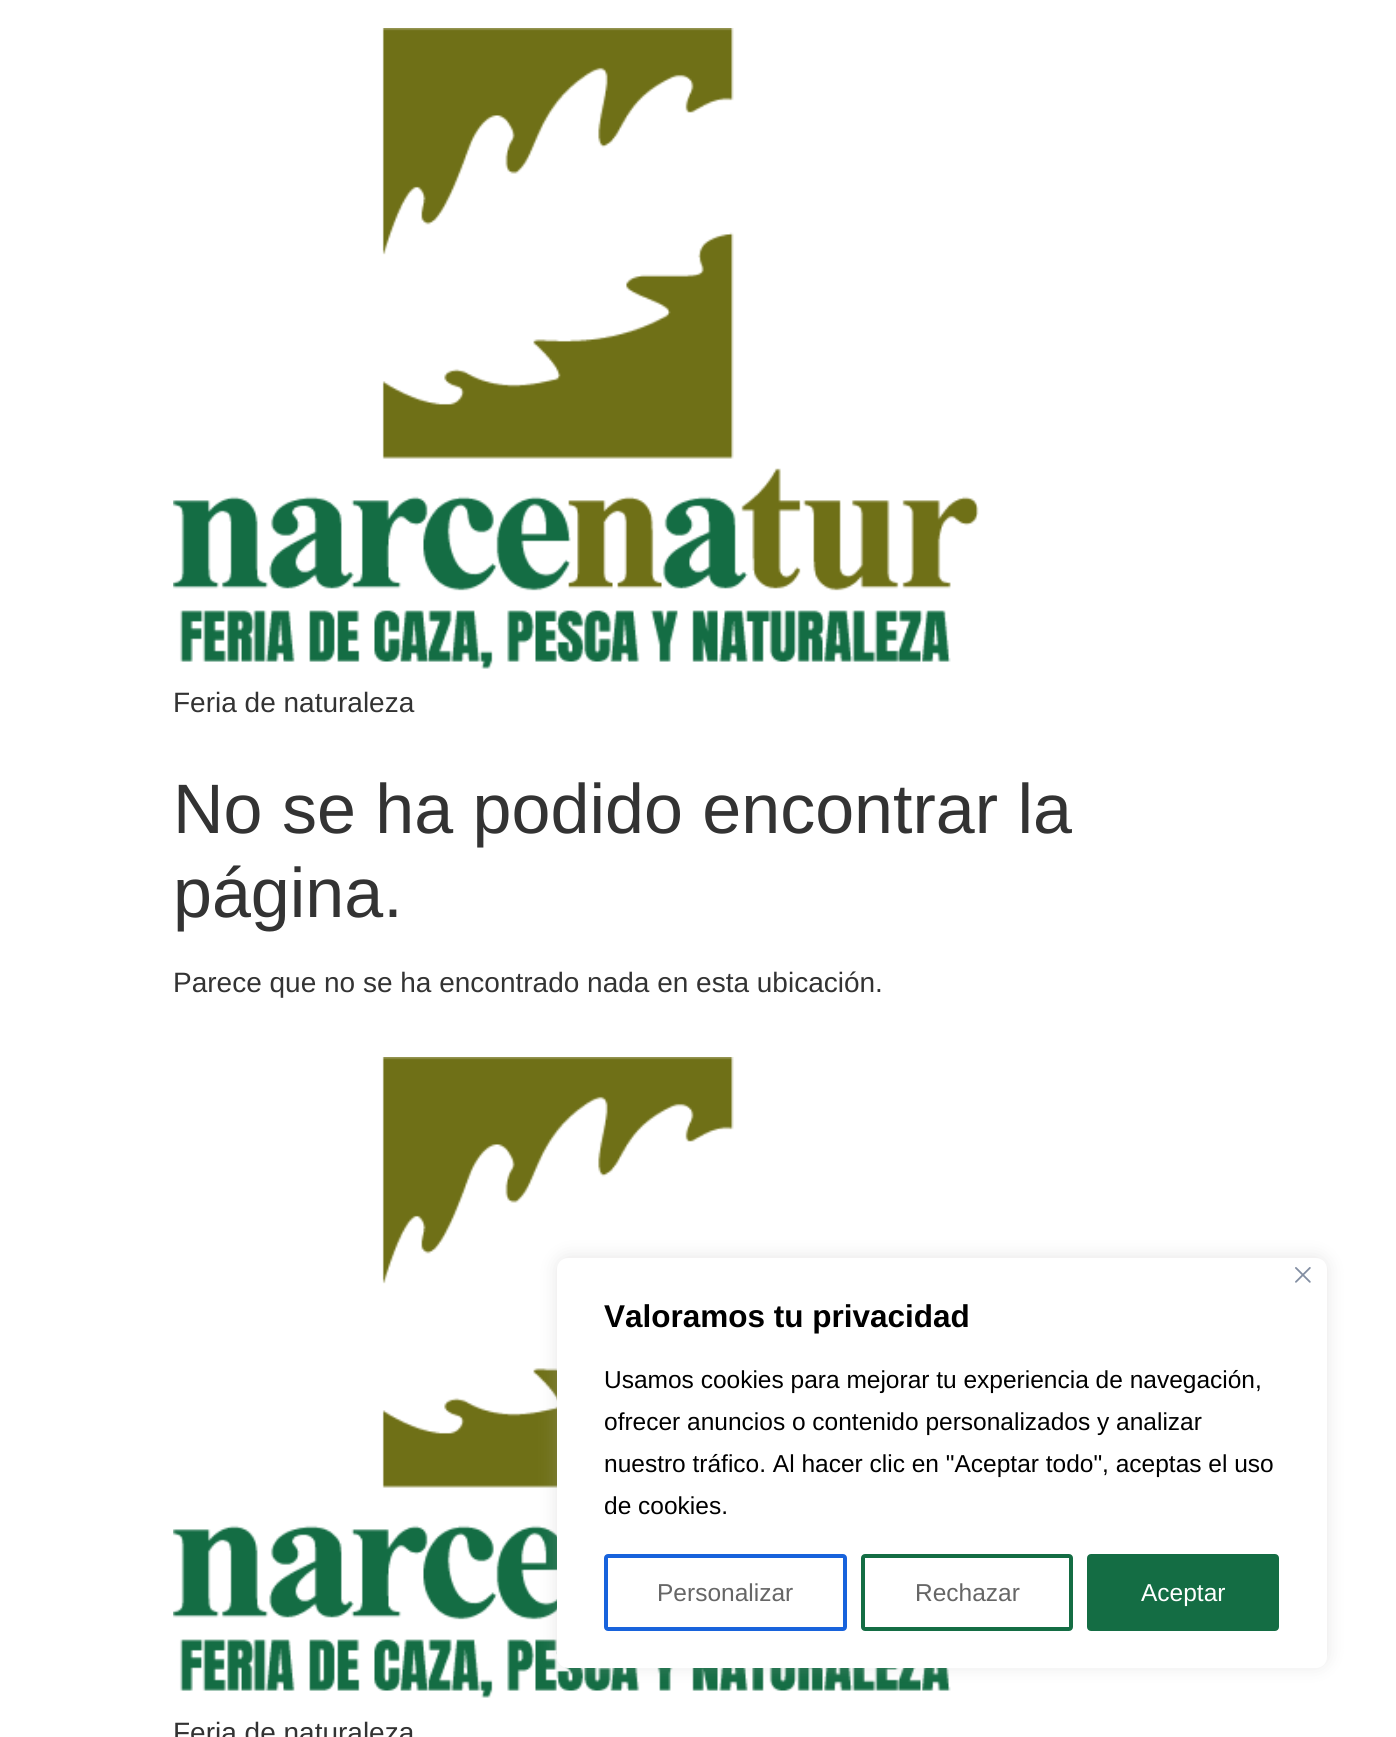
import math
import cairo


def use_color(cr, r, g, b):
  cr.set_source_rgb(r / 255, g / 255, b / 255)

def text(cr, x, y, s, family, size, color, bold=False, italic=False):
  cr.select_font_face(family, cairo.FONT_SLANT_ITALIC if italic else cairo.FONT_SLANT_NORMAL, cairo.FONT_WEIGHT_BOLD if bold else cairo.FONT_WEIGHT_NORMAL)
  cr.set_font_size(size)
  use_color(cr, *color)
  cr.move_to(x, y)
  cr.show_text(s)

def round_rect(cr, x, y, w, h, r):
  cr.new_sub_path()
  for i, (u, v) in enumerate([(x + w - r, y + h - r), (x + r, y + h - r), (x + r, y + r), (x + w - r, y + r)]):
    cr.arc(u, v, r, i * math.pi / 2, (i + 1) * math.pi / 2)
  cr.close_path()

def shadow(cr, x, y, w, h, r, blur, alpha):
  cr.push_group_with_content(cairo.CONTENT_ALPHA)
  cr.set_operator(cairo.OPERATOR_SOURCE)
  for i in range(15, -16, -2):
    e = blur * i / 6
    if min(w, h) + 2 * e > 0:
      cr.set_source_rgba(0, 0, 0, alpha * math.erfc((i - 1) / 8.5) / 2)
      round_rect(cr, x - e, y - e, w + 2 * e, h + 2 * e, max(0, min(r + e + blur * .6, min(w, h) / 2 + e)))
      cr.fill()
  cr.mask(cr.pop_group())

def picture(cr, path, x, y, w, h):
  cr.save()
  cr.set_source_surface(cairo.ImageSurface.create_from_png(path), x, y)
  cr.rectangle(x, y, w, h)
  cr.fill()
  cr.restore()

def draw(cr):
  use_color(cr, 255, 255, 255)
  cr.paint()
  picture(cr, "img_01.png", 173, 28, 806, 641)
  picture(cr, "img_03.png", 173, 1057, 778, 641)
  use_color(cr, 172, 171, 171)
  shadow(cr, 557, 1257, 770, 409, 11, 9, 0.3)
  use_color(cr, 255, 255, 255)
  round_rect(cr, 558, 1259, 768, 408, 10)
  cr.fill_preserve()
  cr.stroke()
  picture(cr, "img_02.png", 1295, 1267, 16, 16)
  round_rect(cr, 606, 1556, 239, 73, 2)
  use_color(cr, 24, 99, 220)
  cr.set_line_width(4)
  cr.stroke()
  round_rect(cr, 863, 1556, 208, 73, 2)
  use_color(cr, 20, 109, 68)
  cr.stroke()
  round_rect(cr, 1089, 1556, 188, 73, 2)
  cr.fill_preserve()
  cr.stroke()
  text(cr, 173, 712, "Feria de naturaleza", "Liberation Sans", 28, (51, 51, 51))
  text(cr, 173, 833, "No se ha podido encontrar la", "Liberation Sans", 70, (51, 51, 51))
  text(cr, 173, 917, "página.", "Liberation Sans", 70, (51, 51, 51))
  text(cr, 173, 992, "Parece que no se ha encontrado nada en esta ubicación.", "Liberation Sans", 28, (51, 51, 51))
  text(cr, 604, 1327, "Valoramos tu privacidad", "Liberation Sans", 31.5, (0, 0, 0), bold=True)
  text(cr, 604, 1388, "Usamos cookies para mejorar tu experiencia de navegación,", "Liberation Sans", 24.5, (0, 0, 0))
  text(cr, 604, 1430, "ofrecer anuncios o contenido personalizados y analizar", "Liberation Sans", 24.5, (0, 0, 0))
  text(cr, 604, 1472, "nuestro tráfico. Al hacer clic en \"Aceptar todo\", aceptas el uso", "Liberation Sans", 24.5, (0, 0, 0))
  text(cr, 604, 1514, "de cookies.", "Liberation Sans", 24.5, (0, 0, 0))
  text(cr, 657, 1601, "Personalizar", "Liberation Sans", 24.5, (102, 102, 102))
  text(cr, 915, 1601, "Rechazar", "Liberation Sans", 24.5, (102, 102, 102))
  text(cr, 1141, 1601, "Aceptar", "Liberation Sans", 24.5, (255, 255, 255))
  text(cr, 173, 1742, "Feria de naturaleza", "Liberation Sans", 28, (51, 51, 51))


surface = cairo.ImageSurface(cairo.FORMAT_RGB24, 1396, 1737)
cr = cairo.Context(surface)
options = cairo.FontOptions()
options.set_hint_metrics(cairo.HINT_METRICS_OFF)
options.set_hint_style(cairo.HINT_STYLE_NONE)
cr.set_font_options(options)
cr.set_miter_limit(4)
draw(cr)
surface.write_to_png("out.png")
